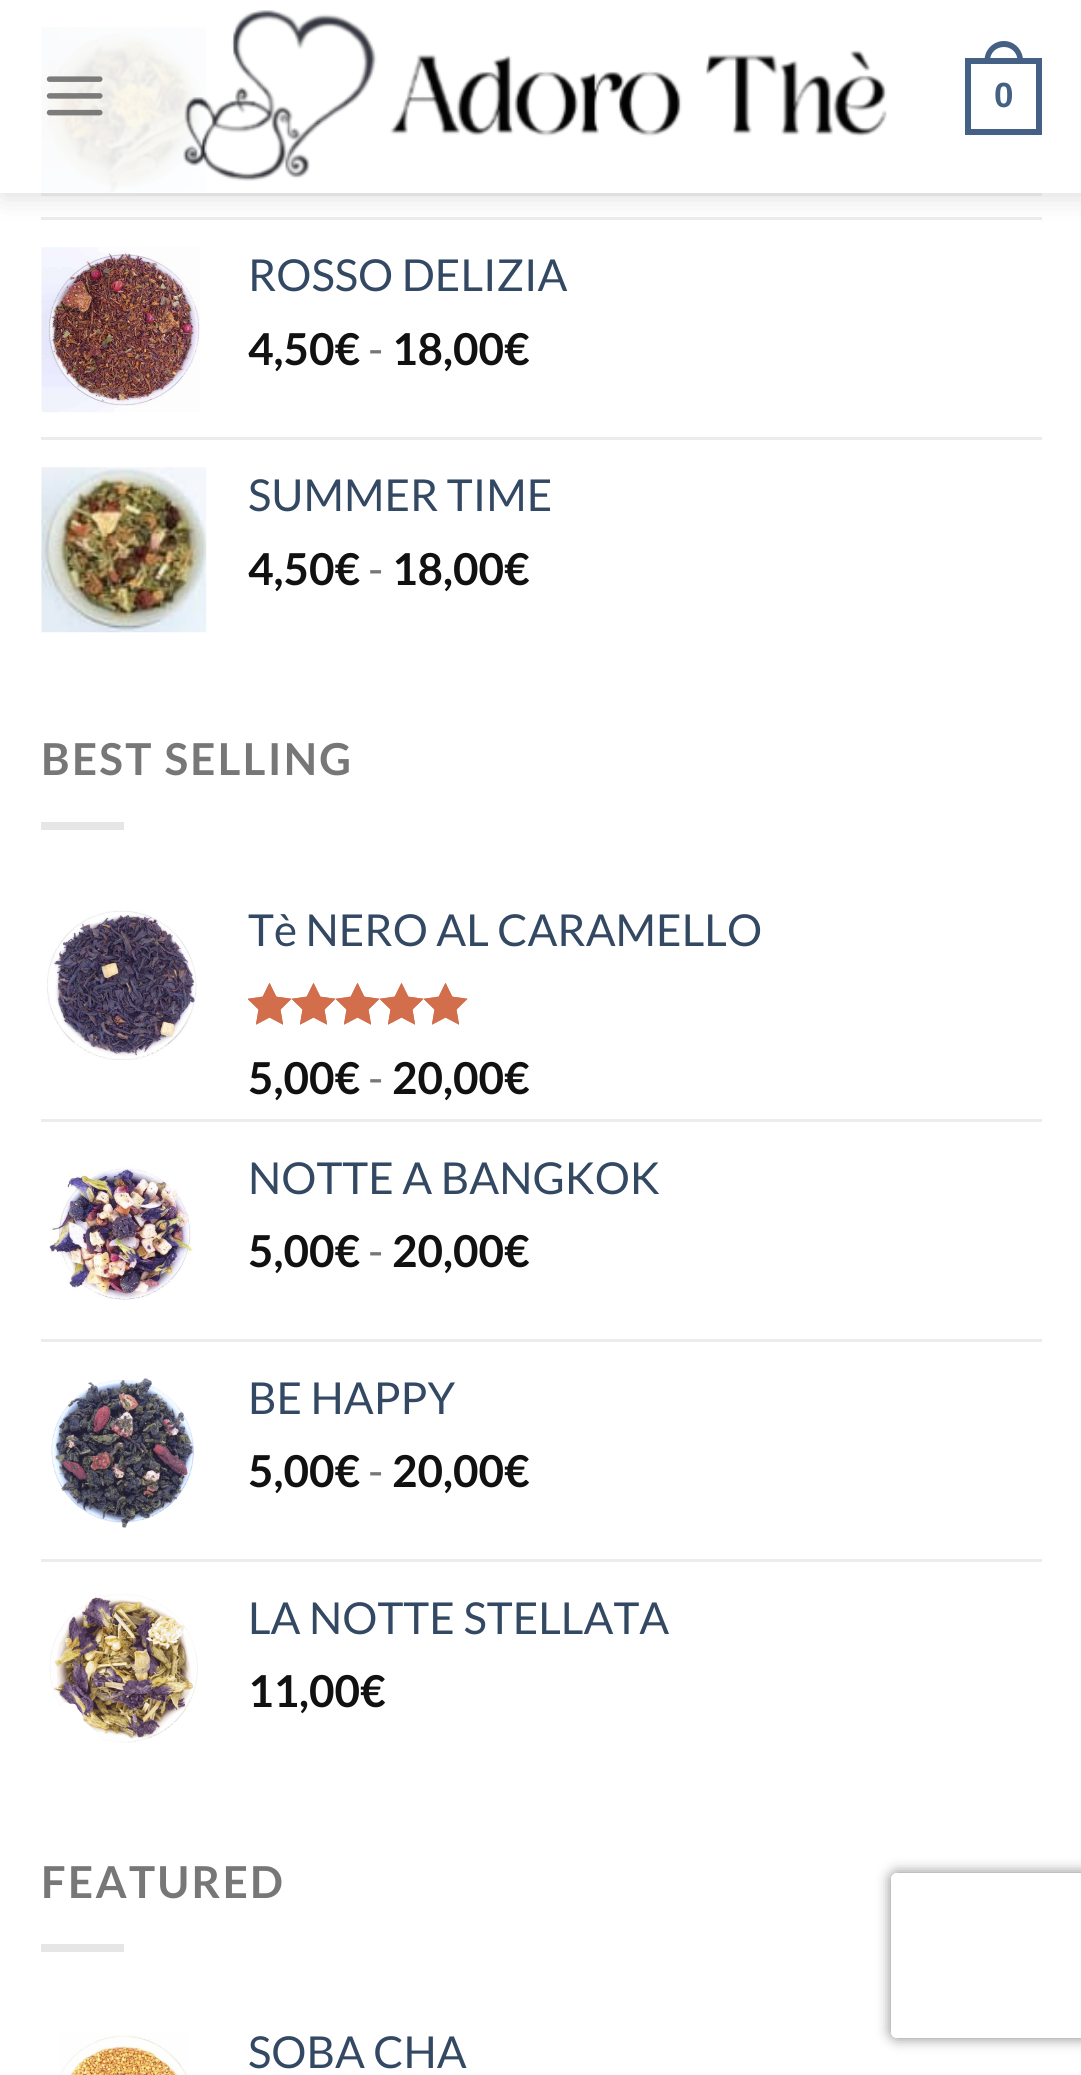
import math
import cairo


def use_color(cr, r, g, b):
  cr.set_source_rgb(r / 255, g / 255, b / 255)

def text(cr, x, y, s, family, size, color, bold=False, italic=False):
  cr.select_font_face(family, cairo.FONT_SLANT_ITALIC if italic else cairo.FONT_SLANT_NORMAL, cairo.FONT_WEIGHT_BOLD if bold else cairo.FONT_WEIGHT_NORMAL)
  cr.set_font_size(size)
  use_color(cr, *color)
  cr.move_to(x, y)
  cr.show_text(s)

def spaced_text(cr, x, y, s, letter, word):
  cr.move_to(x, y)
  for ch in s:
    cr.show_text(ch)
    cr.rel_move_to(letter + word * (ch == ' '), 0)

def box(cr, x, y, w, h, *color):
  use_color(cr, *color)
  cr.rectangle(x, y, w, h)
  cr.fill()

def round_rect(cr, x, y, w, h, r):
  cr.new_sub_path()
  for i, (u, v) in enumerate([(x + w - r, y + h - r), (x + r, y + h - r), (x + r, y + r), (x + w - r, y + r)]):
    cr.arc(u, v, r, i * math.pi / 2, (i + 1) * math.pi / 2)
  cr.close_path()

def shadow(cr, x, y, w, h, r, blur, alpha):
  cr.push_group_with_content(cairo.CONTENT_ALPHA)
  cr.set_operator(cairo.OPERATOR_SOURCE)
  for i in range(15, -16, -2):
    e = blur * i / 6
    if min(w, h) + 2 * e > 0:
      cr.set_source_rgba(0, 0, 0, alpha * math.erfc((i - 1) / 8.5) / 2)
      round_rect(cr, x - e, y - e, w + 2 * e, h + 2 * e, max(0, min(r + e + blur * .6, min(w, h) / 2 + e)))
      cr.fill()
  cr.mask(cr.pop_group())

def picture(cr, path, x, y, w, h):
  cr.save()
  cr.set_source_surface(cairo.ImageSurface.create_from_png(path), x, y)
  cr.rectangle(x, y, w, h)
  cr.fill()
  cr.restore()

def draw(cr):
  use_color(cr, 255, 255, 255)
  cr.paint()
  picture(cr, "img_03.png", 41, 27, 166, 166)
  box(cr, 41, 217, 1001, 3, 236, 236, 236)
  cr.save()
  cr.set_fill_rule(cairo.FILL_RULE_EVEN_ODD)
  cr.new_path()
  cr.move_to(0, 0)
  cr.line_to(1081, 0)
  cr.line_to(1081, 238)
  cr.line_to(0, 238)
  cr.close_path()
  cr.move_to(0, 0)
  cr.line_to(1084, 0)
  cr.line_to(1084, 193)
  cr.line_to(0, 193)
  cr.close_path()
  cr.clip()
  use_color(cr, 0, 0, 0)
  shadow(cr, 3, 3, 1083, 192, 0, 14, 0.15)
  cr.restore()
  cr.set_source_rgba(1, 1, 1, 0.9)
  cr.rectangle(0, 27, 1081, 166)
  cr.fill()
  picture(cr, "img_01.png", 46, 76, 57, 40)
  picture(cr, "img_02.png", 183, 10, 704, 171)
  cr.rectangle(968, 61, 71, 71)
  use_color(cr, 68, 96, 132)
  cr.set_line_width(6)
  cr.stroke()
  cr.set_fill_rule(cairo.FILL_RULE_EVEN_ODD)
  cr.new_path()
  cr.move_to(1004, 41)
  cr.curve_to(1014.5, 41, 1023, 50, 1023, 60.5)
  cr.line_to(1023, 63)
  cr.line_to(984.5, 63)
  cr.line_to(984.5, 60.5)
  cr.curve_to(984.5, 50, 993, 41, 1004, 41)
  cr.close_path()
  cr.move_to(1004, 47)
  cr.curve_to(1011.5, 47, 1017.5, 53, 1017.5, 60.5)
  cr.line_to(1017.5, 63)
  cr.line_to(990, 63)
  cr.line_to(990, 60.5)
  cr.curve_to(990, 53, 996, 47, 1004, 47)
  cr.close_path()
  cr.fill()
  box(cr, 41, 193, 1001, 3, 224, 224, 224)
  picture(cr, "img_04.png", 41, 247, 159, 166)
  box(cr, 41, 437, 1001, 3, 236, 236, 236)
  picture(cr, "img_05.png", 41, 467, 166, 166)
  box(cr, 41, 822, 83, 8, 230, 230, 230)
  picture(cr, "img_06.png", 46, 910, 151, 150)
  picture(cr, "img_07.png", 248, 983, 220, 42)
  picture(cr, "img_08.png", 248, 983, 220, 42)
  box(cr, 41, 1119, 1001, 3, 236, 236, 236)
  picture(cr, "img_09.png", 49, 1167, 145, 133)
  box(cr, 41, 1339, 1001, 3, 236, 236, 236)
  picture(cr, "img_10.png", 51, 1378, 143, 150)
  box(cr, 41, 1559, 1001, 3, 236, 236, 236)
  picture(cr, "img_11.png", 49, 1594, 149, 149)
  box(cr, 41, 1944, 83, 8, 230, 230, 230)
  picture(cr, "img_12.png", 59, 2033, 130, 42)
  cr.save()
  cr.new_path()
  cr.move_to(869, 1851)
  cr.line_to(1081, 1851)
  cr.line_to(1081, 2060)
  cr.line_to(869, 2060)
  cr.close_path()
  cr.move_to(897, 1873)
  cr.line_to(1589, 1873)
  cr.curve_to(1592.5, 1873, 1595, 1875.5, 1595, 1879)
  cr.line_to(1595, 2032)
  cr.curve_to(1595, 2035.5, 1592.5, 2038, 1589, 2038)
  cr.line_to(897, 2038)
  cr.curve_to(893.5, 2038, 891, 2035.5, 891, 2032)
  cr.line_to(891, 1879)
  cr.curve_to(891, 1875.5, 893.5, 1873, 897, 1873)
  cr.close_path()
  cr.clip()
  use_color(cr, 128, 128, 128)
  shadow(cr, 891, 1873, 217, 165, 6, 7, 1)
  cr.restore()
  text(cr, 994, 107, "0", "Liberation Sans", 35, (68, 96, 132), bold=True)
  text(cr, 248, 291, "ROSSO DELIZIA", "Lato", 44, (51, 72, 98))
  text(cr, 248, 365, "4,50€", "Lato", 44, (17, 17, 17), bold=True)
  text(cr, 368, 365, "-", "Lato", 44, (119, 119, 119))
  text(cr, 392, 365, "18,00€", "Lato", 44, (17, 17, 17), bold=True)
  text(cr, 248, 511, "SUMMER TIME", "Lato", 44, (51, 72, 98))
  text(cr, 248, 585, "4,50€", "Lato", 44, (17, 17, 17), bold=True)
  text(cr, 368, 585, "-", "Lato", 44, (119, 119, 119))
  text(cr, 392, 585, "18,00€", "Lato", 44, (17, 17, 17), bold=True)
  use_color(cr, 119, 119, 119)
  spaced_text(cr, 41, 775, "BEST SELLING", 2.25, 0)
  text(cr, 248, 946, "Tè NERO AL CARAMELLO", "Lato", 44, (51, 72, 98))
  text(cr, 248, 1094, "5,00€", "Lato", 44, (17, 17, 17), bold=True)
  text(cr, 368, 1094, "-", "Lato", 44, (119, 119, 119))
  text(cr, 392, 1094, "20,00€", "Lato", 44, (17, 17, 17), bold=True)
  text(cr, 248, 1194, "NOTTE A BANGKOK", "Lato", 44, (51, 72, 98))
  text(cr, 248, 1267, "5,00€", "Lato", 44, (17, 17, 17), bold=True)
  text(cr, 368, 1267, "-", "Lato", 44, (119, 119, 119))
  text(cr, 392, 1267, "20,00€", "Lato", 44, (17, 17, 17), bold=True)
  text(cr, 248, 1414, "BE HAPPY", "Lato", 44, (51, 72, 98))
  text(cr, 248, 1487, "5,00€", "Lato", 44, (17, 17, 17), bold=True)
  text(cr, 368, 1487, "-", "Lato", 44, (119, 119, 119))
  text(cr, 392, 1487, "20,00€", "Lato", 44, (17, 17, 17), bold=True)
  text(cr, 248, 1634, "LA NOTTE STELLATA", "Lato", 44, (51, 72, 98))
  text(cr, 248, 1707, "11,00€", "Lato", 44, (17, 17, 17), bold=True)
  use_color(cr, 119, 119, 119)
  spaced_text(cr, 41, 1898, "FEATURED", 2.25, 0)
  text(cr, 248, 2068, "SOBA CHA", "Lato", 44, (51, 72, 98))


surface = cairo.ImageSurface(cairo.FORMAT_RGB24, 1081, 2075)
cr = cairo.Context(surface)
options = cairo.FontOptions()
options.set_hint_metrics(cairo.HINT_METRICS_OFF)
options.set_hint_style(cairo.HINT_STYLE_NONE)
cr.set_font_options(options)
cr.set_miter_limit(4)
draw(cr)
surface.write_to_png("out.png")
